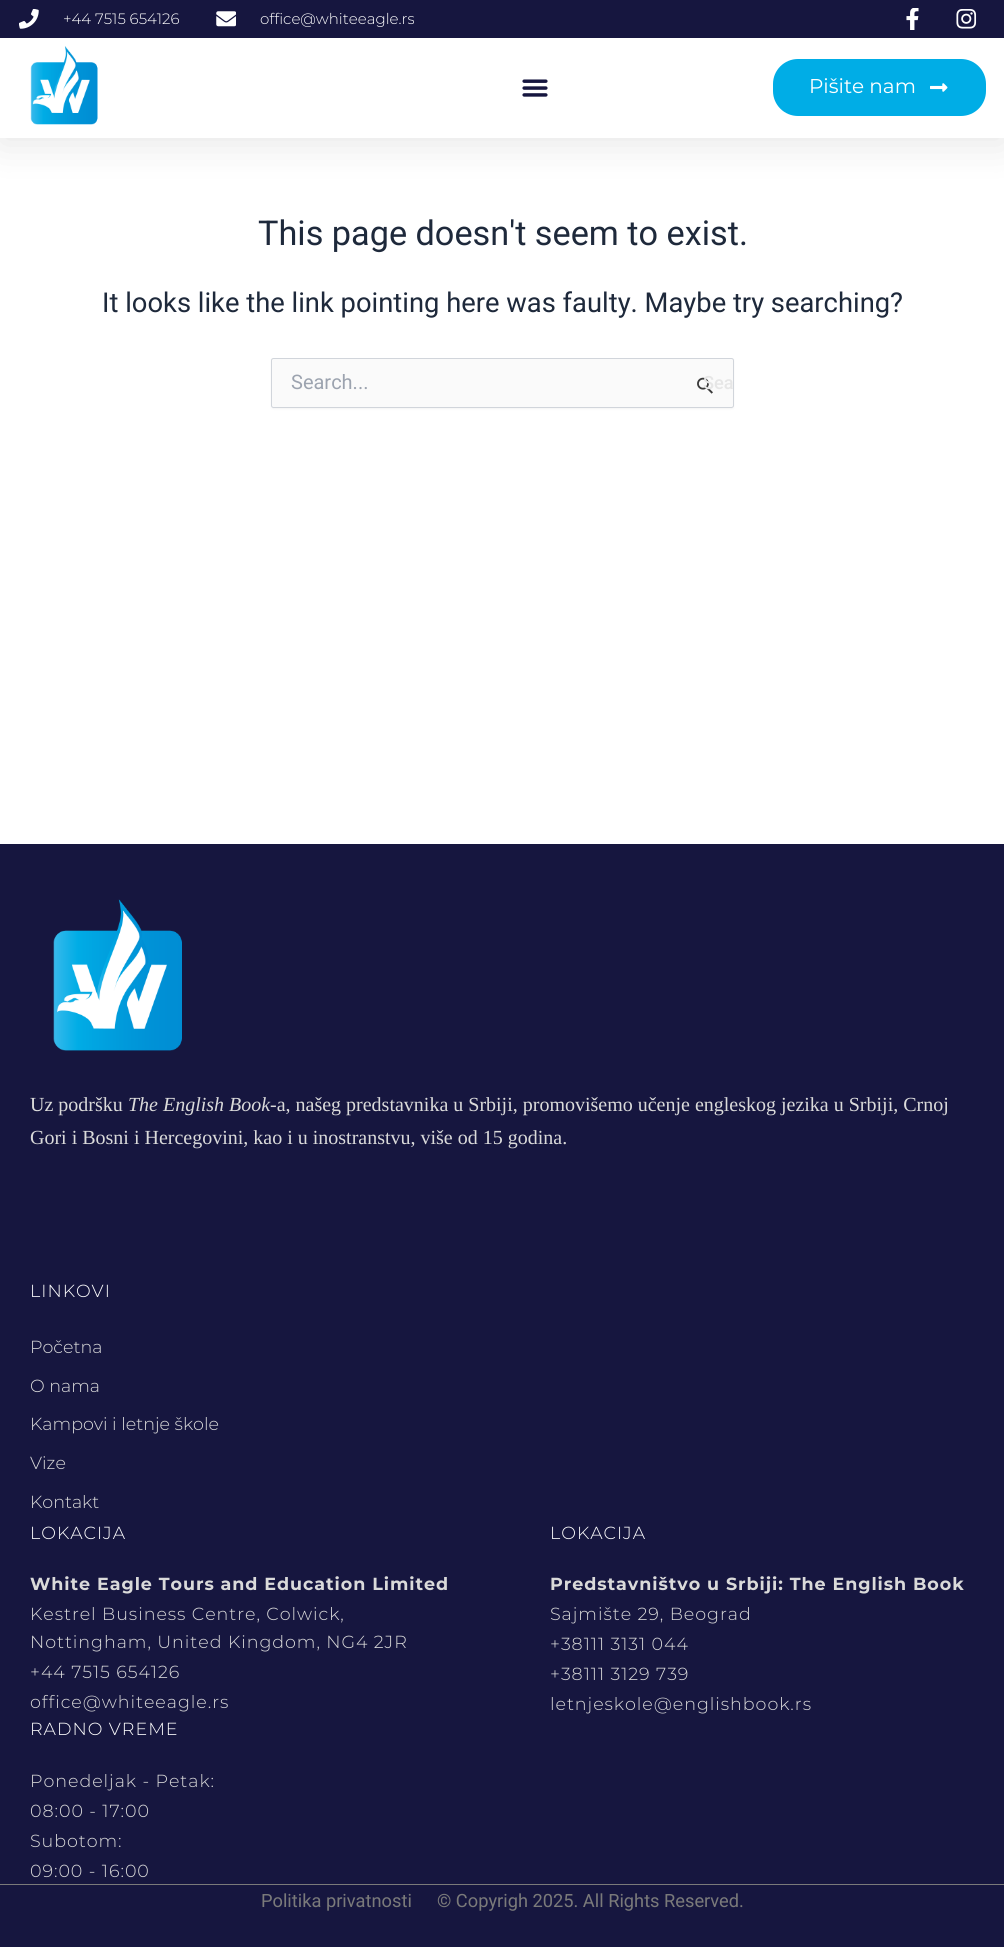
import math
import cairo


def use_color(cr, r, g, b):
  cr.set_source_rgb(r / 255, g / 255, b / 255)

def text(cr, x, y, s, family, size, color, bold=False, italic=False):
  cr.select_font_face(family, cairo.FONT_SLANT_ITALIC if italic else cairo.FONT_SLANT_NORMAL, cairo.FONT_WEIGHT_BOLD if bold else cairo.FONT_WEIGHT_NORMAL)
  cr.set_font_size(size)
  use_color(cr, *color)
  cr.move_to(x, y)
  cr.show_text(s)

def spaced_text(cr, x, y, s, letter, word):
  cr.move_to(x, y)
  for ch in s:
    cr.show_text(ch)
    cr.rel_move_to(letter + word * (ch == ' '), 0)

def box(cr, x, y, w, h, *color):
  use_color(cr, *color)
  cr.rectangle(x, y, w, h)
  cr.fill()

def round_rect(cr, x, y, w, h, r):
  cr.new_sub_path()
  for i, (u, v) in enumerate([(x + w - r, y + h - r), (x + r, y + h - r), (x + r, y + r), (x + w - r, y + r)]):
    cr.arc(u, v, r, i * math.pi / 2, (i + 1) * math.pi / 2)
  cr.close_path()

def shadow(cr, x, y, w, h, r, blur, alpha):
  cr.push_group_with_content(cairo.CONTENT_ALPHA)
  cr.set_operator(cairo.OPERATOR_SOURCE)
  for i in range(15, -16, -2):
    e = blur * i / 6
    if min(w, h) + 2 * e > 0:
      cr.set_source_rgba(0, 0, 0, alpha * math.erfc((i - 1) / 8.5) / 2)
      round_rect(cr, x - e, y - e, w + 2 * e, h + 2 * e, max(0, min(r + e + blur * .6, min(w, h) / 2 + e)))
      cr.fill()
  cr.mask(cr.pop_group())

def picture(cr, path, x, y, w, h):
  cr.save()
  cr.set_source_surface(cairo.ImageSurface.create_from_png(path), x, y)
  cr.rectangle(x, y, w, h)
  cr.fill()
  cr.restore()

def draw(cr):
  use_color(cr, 255, 255, 255)
  cr.paint()
  use_color(cr, 0, 0, 0)
  shadow(cr, 0, 6, 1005, 138, 0, 19, 0.1)
  box(cr, 0, 0, 1004, 38, 22, 22, 63)
  picture(cr, "img_01.png", 19, 9, 20, 20)
  picture(cr, "img_02.png", 216, 11, 20, 16)
  picture(cr, "img_03.png", 906, 8, 13, 22)
  picture(cr, "img_04.png", 956, 9, 21, 20)
  box(cr, 0, 38, 1004, 100, 255, 255, 255)
  picture(cr, "img_05.png", 30, 46, 68, 79)
  picture(cr, "img_06.png", 522, 79, 26, 18)
  use_color(cr, 0, 173, 230)
  round_rect(cr, 773, 59, 213, 57, 25)
  cr.fill()
  picture(cr, "img_07.png", 930, 83, 18, 9)
  use_color(cr, 0, 0, 0)
  shadow(cr, 271, 359, 463, 50, 2.5, 1, 0.05)
  use_color(cr, 250, 250, 250)
  round_rect(cr, 271.5, 358.5, 462, 49, 2)
  cr.fill_preserve()
  use_color(cr, 209, 213, 219)
  cr.set_line_width(1)
  cr.stroke()
  picture(cr, "img_08.png", 697, 377, 16, 17)
  box(cr, 0, 844, 1004, 1103, 22, 22, 63)
  picture(cr, "img_09.png", 53, 899, 129, 152)
  box(cr, 0, 1884, 1004, 1, 122, 122, 122)
  text(cr, 63, 24, "+44 7515 654126", "Montserrat Light", 15, (255, 255, 255))
  text(cr, 260, 24, "office@whiteeagle.rs", "Montserrat Light", 15, (255, 255, 255))
  text(cr, 809, 93, "Pišite nam", "Montserrat", 20, (255, 255, 255))
  text(cr, 258, 245, "This page doesn't seem to exist.", "Roboto", 34.25, (30, 41, 59))
  text(cr, 102, 312, "It looks like the link pointing here was faulty. Maybe try searching?", "Roboto", 27.35, (30, 41, 59))
  text(cr, 291, 389, "Search...", "Roboto", 20, (156, 163, 175))
  text(cr, 703, 389, "Sea", "Roboto Medium", 18.25, (230, 230, 230))
  text(cr, 30, 1111, "Uz podršku", "Liberation Serif", 20, (218, 218, 218))
  text(cr, 128, 1111, "The English Book", "Liberation Serif", 20, (218, 218, 218), italic=True)
  text(cr, 270, 1111, "-a, našeg predstavnika u Srbiji, promovišemo učenje engleskog jezika u Srbiji, Crnoj", "Liberation Serif", 20, (218, 218, 218))
  text(cr, 30, 1144, "Gori i Bosni i Hercegovini, kao i u inostranstvu, više od 15 godina.", "Liberation Serif", 20, (218, 218, 218))
  cr.select_font_face("Montserrat Light")
  cr.set_font_size(17.5)
  use_color(cr, 255, 255, 255)
  spaced_text(cr, 30, 1297, "LINKOVI", 1, 0)
  text(cr, 30, 1353, "Početna", "Montserrat Light", 17.5, (218, 218, 218))
  text(cr, 30, 1392, "O nama", "Montserrat Light", 17.5, (218, 218, 218))
  text(cr, 30, 1430, "Kampovi i letnje škole", "Montserrat Light", 17.5, (218, 218, 218))
  text(cr, 30, 1469, "Vize", "Montserrat Light", 17.5, (218, 218, 218))
  text(cr, 30, 1508, "Kontakt", "Montserrat Light", 17.5, (218, 218, 218))
  use_color(cr, 255, 255, 255)
  spaced_text(cr, 30, 1539, "LOKACIJA", 1, 0)
  cr.select_font_face("Montserrat", cairo.FONT_SLANT_NORMAL, cairo.FONT_WEIGHT_BOLD)
  use_color(cr, 218, 218, 218)
  spaced_text(cr, 30, 1590, "White Eagle Tours and Education Limited", 0.95, 0)
  cr.select_font_face("Montserrat Light")
  spaced_text(cr, 30, 1620, "Kestrel Business Centre, Colwick,", 0.95, 0)
  spaced_text(cr, 30, 1648, "Nottingham, United Kingdom, NG4 2JR", 0.95, 0)
  spaced_text(cr, 30, 1678, "+44 7515 654126", 0.95, 0)
  spaced_text(cr, 30, 1708, "office@whiteeagle.rs", 0.95, 0)
  use_color(cr, 255, 255, 255)
  spaced_text(cr, 550, 1539, "LOKACIJA", 1, 0)
  cr.select_font_face("Montserrat", cairo.FONT_SLANT_NORMAL, cairo.FONT_WEIGHT_BOLD)
  use_color(cr, 218, 218, 218)
  spaced_text(cr, 550, 1590, "Predstavništvo u Srbiji: The English Book", 0.95, 0)
  cr.select_font_face("Montserrat Light")
  spaced_text(cr, 550, 1620, "Sajmište 29, Beograd", 0.95, 0)
  spaced_text(cr, 550, 1650, "+38111 3131 044", 0.95, 0)
  spaced_text(cr, 550, 1680, "+38111 3129 739", 0.95, 0)
  spaced_text(cr, 550, 1710, "letnjeskole@englishbook.rs", 0.95, 0)
  use_color(cr, 255, 255, 255)
  spaced_text(cr, 30, 1735, "RADNO VREME", 1, 0)
  use_color(cr, 218, 218, 218)
  spaced_text(cr, 30, 1787, "Ponedeljak - Petak:", 0.95, 0)
  spaced_text(cr, 30, 1817, "08:00 - 17:00", 0.95, 0)
  spaced_text(cr, 30, 1847, "Subotom:", 0.95, 0)
  spaced_text(cr, 30, 1877, "09:00 - 16:00", 0.95, 0)
  text(cr, 261, 1907, "Politika privatnosti", "Roboto", 18.25, (122, 122, 122))
  text(cr, 437, 1907, "© Copyrigh 2025. All Rights Reserved.", "Roboto", 18.25, (122, 122, 122))


surface = cairo.ImageSurface(cairo.FORMAT_RGB24, 1004, 1947)
cr = cairo.Context(surface)
options = cairo.FontOptions()
options.set_hint_metrics(cairo.HINT_METRICS_OFF)
options.set_hint_style(cairo.HINT_STYLE_NONE)
cr.set_font_options(options)
cr.set_miter_limit(4)
draw(cr)
surface.write_to_png("out.png")
